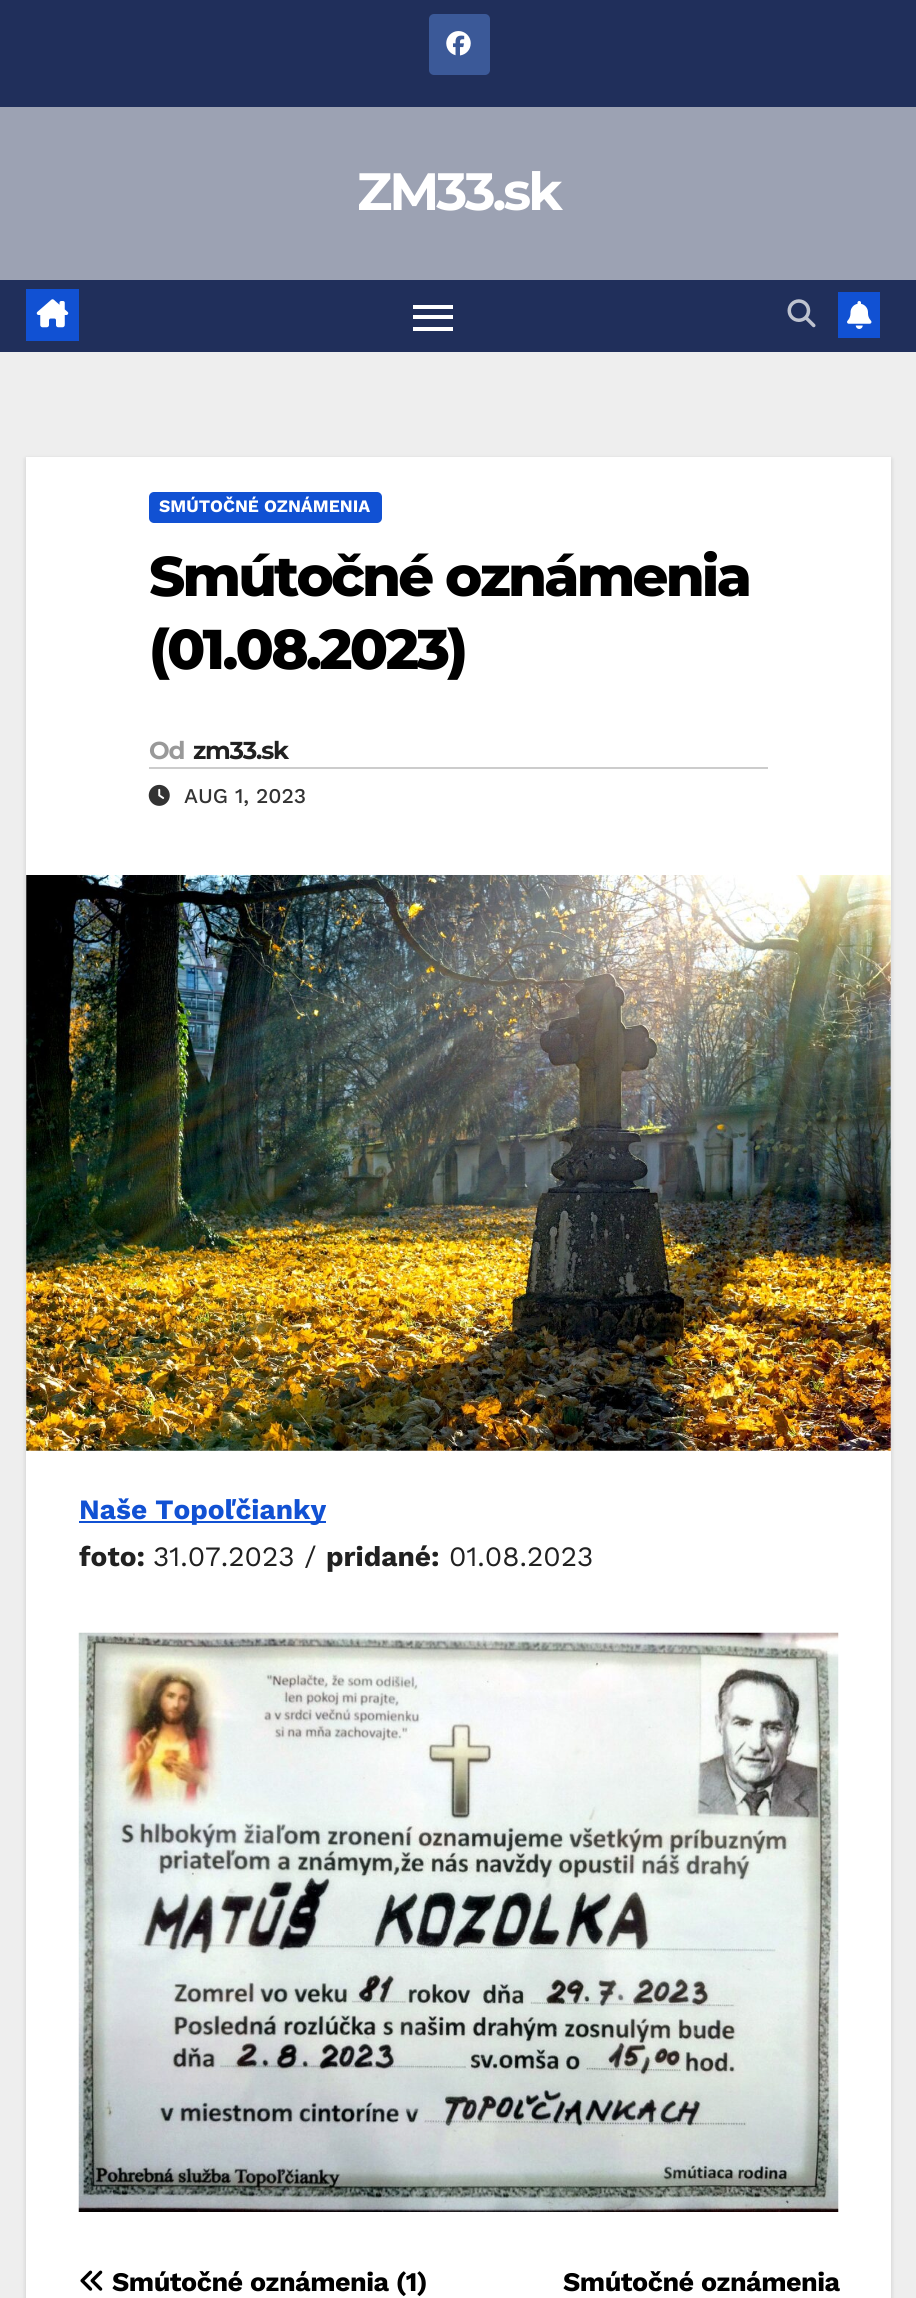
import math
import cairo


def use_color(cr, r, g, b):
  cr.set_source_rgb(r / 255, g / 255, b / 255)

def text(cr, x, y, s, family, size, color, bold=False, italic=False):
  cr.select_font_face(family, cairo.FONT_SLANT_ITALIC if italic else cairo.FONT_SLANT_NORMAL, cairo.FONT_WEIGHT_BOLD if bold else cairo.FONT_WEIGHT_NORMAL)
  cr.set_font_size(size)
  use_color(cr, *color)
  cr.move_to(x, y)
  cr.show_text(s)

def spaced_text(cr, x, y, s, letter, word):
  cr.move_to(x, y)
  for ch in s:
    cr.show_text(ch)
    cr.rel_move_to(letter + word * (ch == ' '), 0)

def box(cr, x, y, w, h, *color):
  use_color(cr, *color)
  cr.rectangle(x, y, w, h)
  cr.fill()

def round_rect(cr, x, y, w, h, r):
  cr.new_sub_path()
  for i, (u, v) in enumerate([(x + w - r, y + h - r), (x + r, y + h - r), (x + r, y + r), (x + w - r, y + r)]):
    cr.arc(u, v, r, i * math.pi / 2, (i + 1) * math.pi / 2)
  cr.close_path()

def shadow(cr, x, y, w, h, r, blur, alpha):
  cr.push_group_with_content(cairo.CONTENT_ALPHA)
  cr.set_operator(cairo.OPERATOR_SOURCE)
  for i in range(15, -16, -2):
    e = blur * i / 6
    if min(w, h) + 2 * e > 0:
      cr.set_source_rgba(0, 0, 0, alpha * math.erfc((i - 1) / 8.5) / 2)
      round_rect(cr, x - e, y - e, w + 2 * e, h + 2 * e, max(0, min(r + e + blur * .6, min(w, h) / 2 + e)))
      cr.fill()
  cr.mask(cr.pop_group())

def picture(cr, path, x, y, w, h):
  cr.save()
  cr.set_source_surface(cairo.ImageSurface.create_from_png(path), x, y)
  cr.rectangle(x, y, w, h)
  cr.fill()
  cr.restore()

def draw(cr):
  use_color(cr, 238, 238, 238)
  cr.paint()
  box(cr, 0, 0, 916, 107, 32, 47, 91)
  use_color(cr, 59, 89, 152)
  round_rect(cr, 429, 14, 61, 61, 5)
  cr.fill()
  picture(cr, "img_01.png", 446, 31, 25, 25)
  box(cr, 0, 107, 916, 173, 156, 162, 179)
  box(cr, 0, 280, 916, 72, 32, 47, 91)
  box(cr, 26, 289, 53, 52, 17, 81, 211)
  picture(cr, "img_02.png", 36, 299, 33, 29)
  box(cr, 413, 305, 40, 4, 255, 255, 255)
  box(cr, 413, 315, 40, 4, 255, 255, 255)
  box(cr, 413, 327, 40, 4, 255, 255, 255)
  picture(cr, "img_03.png", 787, 299, 29, 29)
  box(cr, 838, 292, 42, 46, 17, 81, 211)
  picture(cr, "img_04.png", 847, 301, 25, 28)
  use_color(cr, 0, 0, 0)
  shadow(cr, 26, 459, 865, 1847, 0, 2.5, 0.15)
  box(cr, 26, 457, 865, 1841, 255, 255, 255)
  use_color(cr, 17, 81, 211)
  round_rect(cr, 149, 492, 233, 31, 5)
  cr.fill()
  box(cr, 149, 767, 619, 2, 204, 204, 204)
  picture(cr, "img_05.png", 148, 784, 22, 22)
  picture(cr, "img_06.png", 26, 875, 865, 576)
  box(cr, 79, 1521, 247, 2, 17, 81, 211)
  picture(cr, "img_07.png", 78, 1632, 761, 580)
  picture(cr, "img_08.png", 80, 2270, 23, 21)
  cr.select_font_face("Montserrat", cairo.FONT_SLANT_NORMAL, cairo.FONT_WEIGHT_BOLD)
  cr.set_font_size(52.5)
  use_color(cr, 255, 255, 255)
  spaced_text(cr, 357, 210, "ZM33.sk", -3, 0)
  text(cr, 159, 512, "SMÚTOČNÉ OZNÁMENIA", "Work Sans", 17.5, (255, 255, 255), bold=True)
  cr.select_font_face("Montserrat ExtraBold")
  cr.set_font_size(56)
  use_color(cr, 0, 0, 0)
  spaced_text(cr, 149, 596, "Smútočné oznámenia", -2.75, 0)
  spaced_text(cr, 149, 669, "(01.08.2023)", -2.75, 0)
  cr.select_font_face("Montserrat", cairo.FONT_SLANT_NORMAL, cairo.FONT_WEIGHT_BOLD)
  cr.set_font_size(24.5)
  use_color(cr, 153, 153, 153)
  spaced_text(cr, 149, 759, "Od", -1.25, 0)
  use_color(cr, 33, 33, 33)
  spaced_text(cr, 193, 759, "zm33.sk", -1.25, 0)
  text(cr, 184, 803, "AUG 1, 2023", "Work Sans Medium", 21, (51, 51, 51))
  text(cr, 79, 1519, "Naše Topoľčianky", "Work Sans", 28, (17, 81, 211), bold=True)
  text(cr, 79, 1566, "foto:", "Work Sans", 28, (33, 33, 33), bold=True)
  text(cr, 153, 1566, "31.07.2023 /", "Work Sans", 28, (33, 33, 33))
  text(cr, 326, 1566, "pridané:", "Work Sans", 28, (33, 33, 33), bold=True)
  text(cr, 449, 1566, "01.08.2023", "Work Sans", 28, (33, 33, 33))
  cr.select_font_face("Work Sans", cairo.FONT_SLANT_NORMAL, cairo.FONT_WEIGHT_BOLD)
  cr.set_font_size(26.9)
  use_color(cr, 0, 0, 0)
  spaced_text(cr, 112, 2291, "Smútočné oznámenia (1)", -0.5, 0)
  spaced_text(cr, 563, 2291, "Smútočné oznámenia", -0.5, 0)


surface = cairo.ImageSurface(cairo.FORMAT_RGB24, 916, 2298)
cr = cairo.Context(surface)
options = cairo.FontOptions()
options.set_hint_metrics(cairo.HINT_METRICS_OFF)
options.set_hint_style(cairo.HINT_STYLE_NONE)
cr.set_font_options(options)
cr.set_miter_limit(4)
draw(cr)
surface.write_to_png("out.png")
